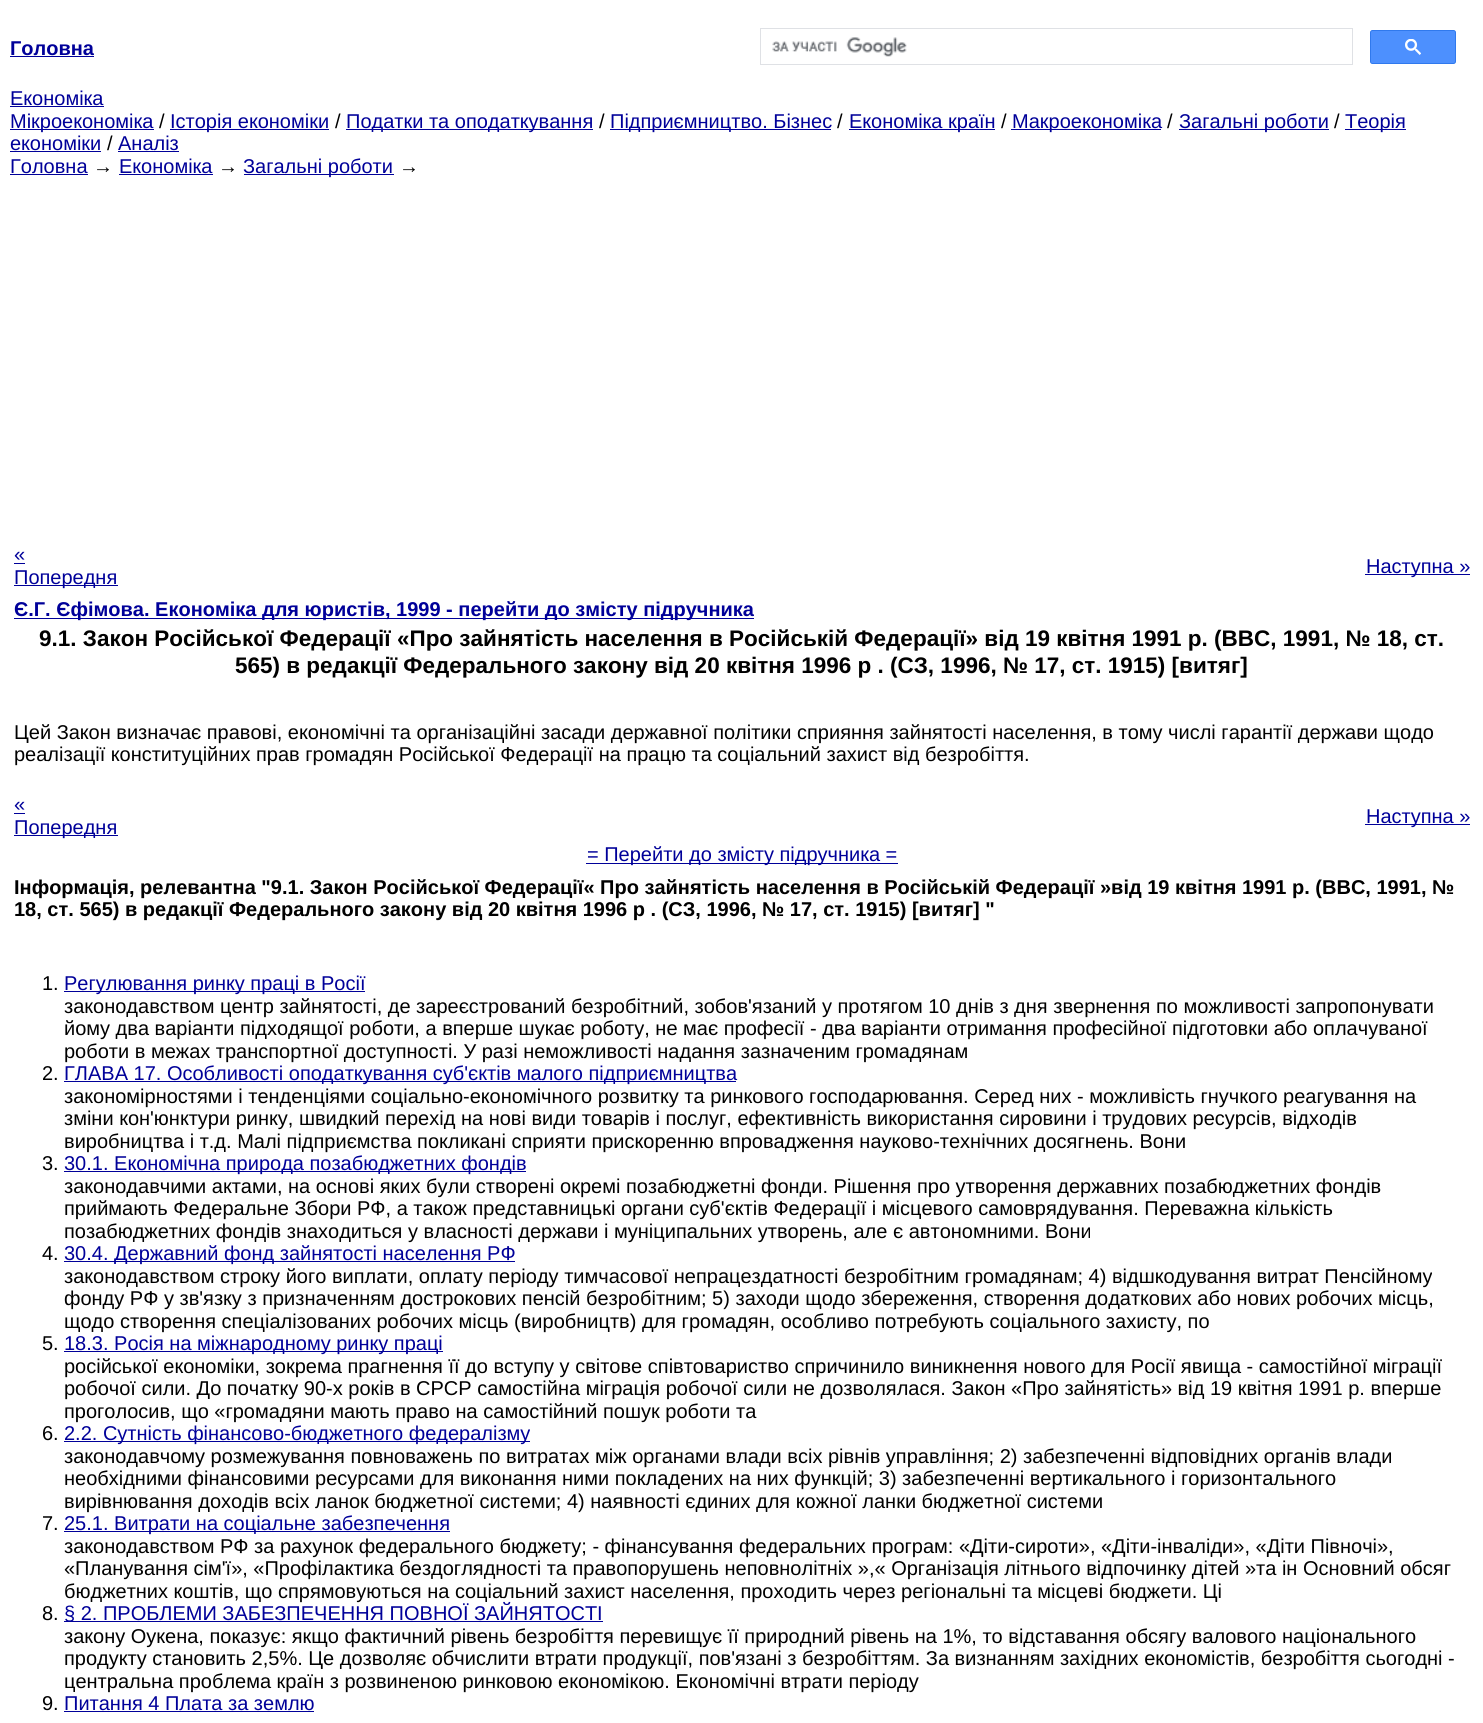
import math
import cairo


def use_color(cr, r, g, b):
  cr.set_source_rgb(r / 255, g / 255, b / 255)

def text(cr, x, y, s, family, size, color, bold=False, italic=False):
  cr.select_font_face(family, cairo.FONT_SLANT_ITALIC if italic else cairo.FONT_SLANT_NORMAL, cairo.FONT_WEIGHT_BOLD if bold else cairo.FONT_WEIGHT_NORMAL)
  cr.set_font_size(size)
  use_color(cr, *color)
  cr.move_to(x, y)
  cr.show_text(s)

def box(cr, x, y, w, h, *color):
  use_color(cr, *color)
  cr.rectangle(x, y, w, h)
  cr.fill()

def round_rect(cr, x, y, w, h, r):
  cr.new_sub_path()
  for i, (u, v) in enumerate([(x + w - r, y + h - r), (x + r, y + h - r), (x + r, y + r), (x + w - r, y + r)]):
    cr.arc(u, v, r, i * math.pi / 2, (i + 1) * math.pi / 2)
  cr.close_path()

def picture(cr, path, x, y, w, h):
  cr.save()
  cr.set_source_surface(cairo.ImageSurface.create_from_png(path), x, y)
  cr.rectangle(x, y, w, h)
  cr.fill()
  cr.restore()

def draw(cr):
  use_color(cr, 255, 255, 255)
  cr.paint()
  box(cr, 10, 56, 84, 1, 0, 0, 153)
  cr.rectangle(760.5, 28.5, 592, 36)
  use_color(cr, 223, 225, 229)
  cr.set_line_width(1)
  cr.stroke()
  picture(cr, "img_01.png", 772, 37, 135, 20)
  use_color(cr, 77, 144, 254)
  round_rect(cr, 1370.5, 30.5, 85, 33, 2)
  cr.fill_preserve()
  use_color(cr, 48, 121, 237)
  cr.stroke()
  picture(cr, "img_02.png", 1405, 39, 16, 16)
  box(cr, 10, 106, 94, 1, 0, 0, 153)
  box(cr, 10, 129, 144, 1, 0, 0, 153)
  box(cr, 170, 129, 159, 1, 0, 0, 153)
  box(cr, 346, 129, 247, 1, 0, 0, 153)
  box(cr, 610, 129, 221, 1, 0, 0, 153)
  box(cr, 849, 129, 146, 1, 0, 0, 153)
  box(cr, 1011, 129, 150, 1, 0, 0, 153)
  box(cr, 1179, 129, 150, 1, 0, 0, 153)
  box(cr, 1345, 129, 61, 1, 0, 0, 153)
  box(cr, 10, 151, 91, 1, 0, 0, 153)
  box(cr, 118, 151, 61, 1, 0, 0, 153)
  box(cr, 10, 174, 78, 1, 0, 0, 153)
  box(cr, 119, 174, 94, 1, 0, 0, 153)
  box(cr, 244, 174, 150, 1, 0, 0, 153)
  box(cr, 14, 563, 11, 1, 0, 0, 153)
  box(cr, 14, 585, 104, 1, 0, 0, 153)
  box(cr, 1365, 574, 105, 1, 0, 0, 153)
  box(cr, 14, 618, 740, 1, 0, 0, 153)
  box(cr, 14, 813, 11, 1, 0, 0, 153)
  box(cr, 14, 835, 104, 1, 0, 0, 153)
  box(cr, 1365, 824, 105, 1, 0, 0, 153)
  box(cr, 586, 863, 312, 1, 0, 0, 153)
  box(cr, 64, 991, 301, 1, 0, 0, 153)
  box(cr, 64, 1081, 672, 1, 0, 0, 153)
  box(cr, 64, 1171, 462, 1, 0, 0, 153)
  box(cr, 64, 1261, 451, 1, 0, 0, 153)
  box(cr, 64, 1351, 379, 1, 0, 0, 153)
  box(cr, 64, 1441, 466, 1, 0, 0, 153)
  box(cr, 64, 1531, 386, 1, 0, 0, 153)
  box(cr, 64, 1621, 539, 1, 0, 0, 153)
  box(cr, 64, 1711, 250, 1, 0, 0, 153)
  text(cr, 10, 55, "Головна", "Liberation Sans", 20, (0, 0, 153), bold=True)
  text(cr, 10, 105, "Економіка", "Liberation Sans", 20, (0, 0, 153))
  text(cr, 10, 128, "Мікроекономіка", "Liberation Sans", 20, (0, 0, 153))
  text(cr, 159, 128, "/", "Liberation Sans", 20, (0, 0, 0))
  text(cr, 170, 128, "Історія економіки", "Liberation Sans", 20, (0, 0, 153))
  text(cr, 335, 128, "/", "Liberation Sans", 20, (0, 0, 0))
  text(cr, 346, 128, "Податки та оподаткування", "Liberation Sans", 20, (0, 0, 153))
  text(cr, 599, 128, "/", "Liberation Sans", 20, (0, 0, 0))
  text(cr, 610, 128, "Підприємництво. Бізнес", "Liberation Sans", 20, (0, 0, 153))
  text(cr, 837, 128, "/", "Liberation Sans", 20, (0, 0, 0))
  text(cr, 849, 128, "Економіка країн", "Liberation Sans", 20, (0, 0, 153))
  text(cr, 1001, 128, "/", "Liberation Sans", 20, (0, 0, 0))
  text(cr, 1012, 128, "Макроекономіка", "Liberation Sans", 20, (0, 0, 153))
  text(cr, 1167, 128, "/", "Liberation Sans", 20, (0, 0, 0))
  text(cr, 1179, 128, "Загальні роботи", "Liberation Sans", 20, (0, 0, 153))
  text(cr, 1334, 128, "/", "Liberation Sans", 20, (0, 0, 0))
  text(cr, 1345, 128, "Теорія", "Liberation Sans", 20, (0, 0, 153))
  text(cr, 10, 150, "економіки", "Liberation Sans", 20, (0, 0, 153))
  text(cr, 107, 150, "/", "Liberation Sans", 20, (0, 0, 0))
  text(cr, 118, 150, "Аналіз", "Liberation Sans", 20, (0, 0, 153))
  text(cr, 10, 173, "Головна", "Liberation Sans", 20, (0, 0, 153))
  text(cr, 93, 173, "→", "Liberation Sans", 20, (0, 0, 0))
  text(cr, 119, 173, "Економіка", "Liberation Sans", 20, (0, 0, 153))
  text(cr, 218, 173, "→", "Liberation Sans", 20, (0, 0, 0))
  text(cr, 243, 173, "Загальні роботи", "Liberation Sans", 20, (0, 0, 153))
  text(cr, 399, 173, "→", "Liberation Sans", 20, (0, 0, 0))
  text(cr, 14, 561, "«", "Liberation Sans", 20, (0, 0, 153))
  text(cr, 14, 584, "Попередня", "Liberation Sans", 20, (0, 0, 153))
  text(cr, 1366, 573, "Наступна »", "Liberation Sans", 20, (0, 0, 153))
  text(cr, 14, 616, "Є.Г. Єфімова. Економіка для юристів, 1999 - перейти до змісту підручника", "Liberation Sans", 20, (0, 0, 153), bold=True)
  text(cr, 39, 646, "9.1. Закон Російської Федерації «Про зайнятість населення в Російській Федерації» від 19 квітня 1991 р. (ВВС, 1991, № 18, ст.", "Liberation Sans", 22.5, (0, 0, 0), bold=True)
  text(cr, 235, 673, "565) в редакції Федерального закону від 20 квітня 1996 р . (СЗ, 1996, № 17, ст. 1915) [витяг]", "Liberation Sans", 22.5, (0, 0, 0), bold=True)
  text(cr, 14, 739, "Цей Закон визначає правові, економічні та організаційні засади державної політики сприяння зайнятості населення, в тому числі гарантії держави щодо", "Liberation Sans", 20, (0, 0, 0))
  text(cr, 14, 761, "реалізації конституційних прав громадян Російської Федерації на працю та соціальний захист від безробіття.", "Liberation Sans", 20, (0, 0, 0))
  text(cr, 14, 811, "«", "Liberation Sans", 20, (0, 0, 153))
  text(cr, 14, 834, "Попередня", "Liberation Sans", 20, (0, 0, 153))
  text(cr, 1366, 823, "Наступна »", "Liberation Sans", 20, (0, 0, 153))
  text(cr, 587, 861, "= Перейти до змісту підручника =", "Liberation Sans", 20, (0, 0, 153))
  text(cr, 14, 894, "Інформація, релевантна \"9.1. Закон Російської Федерації« Про зайнятість населення в Російській Федерації »від 19 квітня 1991 р. (ВВС, 1991, №", "Liberation Sans", 20, (0, 0, 0), bold=True)
  text(cr, 14, 916, "18, ст. 565) в редакції Федерального закону від 20 квітня 1996 р . (СЗ, 1996, № 17, ст. 1915) [витяг] \"", "Liberation Sans", 20, (0, 0, 0), bold=True)
  text(cr, 42, 990, "1.", "Liberation Sans", 20, (0, 0, 0))
  text(cr, 64, 990, "Регулювання ринку праці в Росії", "Liberation Sans", 20, (0, 0, 153))
  text(cr, 64, 1013, "законодавством центр зайнятості, де зареєстрований безробітний, зобов'язаний у протягом 10 днів з дня звернення по можливості запропонувати", "Liberation Sans", 20, (0, 0, 0))
  text(cr, 64, 1035, "йому два варіанти підходящої роботи, а вперше шукає роботу, не має професії - два варіанти отримання професійної підготовки або оплачуваної", "Liberation Sans", 20, (0, 0, 0))
  text(cr, 64, 1058, "роботи в межах транспортної доступності. У разі неможливості надання зазначеним громадянам", "Liberation Sans", 20, (0, 0, 0))
  text(cr, 42, 1080, "2.", "Liberation Sans", 20, (0, 0, 0))
  text(cr, 64, 1080, "ГЛАВА 17. Особливості оподаткування суб'єктів малого підприємництва", "Liberation Sans", 20, (0, 0, 153))
  text(cr, 64, 1103, "закономірностями і тенденціями соціально-економічного розвитку та ринкового господарювання. Серед них - можливість гнучкого реагування на", "Liberation Sans", 20, (0, 0, 0))
  text(cr, 64, 1125, "зміни кон'юнктури ринку, швидкий перехід на нові види товарів і послуг, ефективність використання сировини і трудових ресурсів, відходів", "Liberation Sans", 20, (0, 0, 0))
  text(cr, 64, 1148, "виробництва і т.д. Малі підприємства покликані сприяти прискоренню впровадження науково-технічних досягнень. Вони", "Liberation Sans", 20, (0, 0, 0))
  text(cr, 42, 1170, "3.", "Liberation Sans", 20, (0, 0, 0))
  text(cr, 64, 1170, "30.1. Економічна природа позабюджетних фондів", "Liberation Sans", 20, (0, 0, 153))
  text(cr, 64, 1193, "законодавчими актами, на основі яких були створені окремі позабюджетні фонди. Рішення про утворення державних позабюджетних фондів", "Liberation Sans", 20, (0, 0, 0))
  text(cr, 64, 1215, "приймають Федеральне Збори РФ, а також представницькі органи суб'єктів Федерації і місцевого самоврядування. Переважна кількість", "Liberation Sans", 20, (0, 0, 0))
  text(cr, 64, 1238, "позабюджетних фондів знаходиться у власності держави і муніципальних утворень, але є автономними. Вони", "Liberation Sans", 20, (0, 0, 0))
  text(cr, 42, 1260, "4.", "Liberation Sans", 20, (0, 0, 0))
  text(cr, 64, 1260, "30.4. Державний фонд зайнятості населення РФ", "Liberation Sans", 20, (0, 0, 153))
  text(cr, 64, 1283, "законодавством строку його виплати, оплату періоду тимчасової непрацездатності безробітним громадянам; 4) відшкодування витрат Пенсійному", "Liberation Sans", 20, (0, 0, 0))
  text(cr, 64, 1305, "фонду РФ у зв'язку з призначенням дострокових пенсій безробітним; 5) заходи щодо збереження, створення додаткових або нових робочих місць,", "Liberation Sans", 20, (0, 0, 0))
  text(cr, 64, 1328, "щодо створення спеціалізованих робочих місць (виробництв) для громадян, особливо потребують соціального захисту, по", "Liberation Sans", 20, (0, 0, 0))
  text(cr, 42, 1350, "5.", "Liberation Sans", 20, (0, 0, 0))
  text(cr, 64, 1350, "18.3. Росія на міжнародному ринку праці", "Liberation Sans", 20, (0, 0, 153))
  text(cr, 64, 1373, "російської економіки, зокрема прагнення її до вступу у світове співтовариство спричинило виникнення нового для Росії явища - самостійної міграції", "Liberation Sans", 20, (0, 0, 0))
  text(cr, 64, 1395, "робочої сили. До початку 90-х років в СРСР самостійна міграція робочої сили не дозволялася. Закон «Про зайнятість» від 19 квітня 1991 р. вперше", "Liberation Sans", 20, (0, 0, 0))
  text(cr, 64, 1418, "проголосив, що «громадяни мають право на самостійний пошук роботи та", "Liberation Sans", 20, (0, 0, 0))
  text(cr, 42, 1440, "6.", "Liberation Sans", 20, (0, 0, 0))
  text(cr, 64, 1440, "2.2. Сутність фінансово-бюджетного федералізму", "Liberation Sans", 20, (0, 0, 153))
  text(cr, 64, 1463, "законодавчому розмежування повноважень по витратах між органами влади всіх рівнів управління; 2) забезпеченні відповідних органів влади", "Liberation Sans", 20, (0, 0, 0))
  text(cr, 64, 1485, "необхідними фінансовими ресурсами для виконання ними покладених на них функцій; 3) забезпеченні вертикального і горизонтального", "Liberation Sans", 20, (0, 0, 0))
  text(cr, 64, 1508, "вирівнювання доходів всіх ланок бюджетної системи; 4) наявності єдиних для кожної ланки бюджетної системи", "Liberation Sans", 20, (0, 0, 0))
  text(cr, 42, 1530, "7.", "Liberation Sans", 20, (0, 0, 0))
  text(cr, 64, 1530, "25.1. Витрати на соціальне забезпечення", "Liberation Sans", 20, (0, 0, 153))
  text(cr, 64, 1553, "законодавством РФ за рахунок федерального бюджету; - фінансування федеральних програм: «Діти-сироти», «Діти-інваліди», «Діти Півночі»,", "Liberation Sans", 20, (0, 0, 0))
  text(cr, 64, 1575, "«Планування сім'ї», «Профілактика бездоглядності та правопорушень неповнолітніх »,« Організація літнього відпочинку дітей »та ін Основний обсяг", "Liberation Sans", 20, (0, 0, 0))
  text(cr, 64, 1598, "бюджетних коштів, що спрямовуються на соціальний захист населення, проходить через регіональні та місцеві бюджети. Ці", "Liberation Sans", 20, (0, 0, 0))
  text(cr, 42, 1620, "8.", "Liberation Sans", 20, (0, 0, 0))
  text(cr, 64, 1620, "§ 2. ПРОБЛЕМИ ЗАБЕЗПЕЧЕННЯ ПОВНОЇ ЗАЙНЯТОСТІ", "Liberation Sans", 20, (0, 0, 153))
  text(cr, 64, 1643, "закону Оукена, показує: якщо фактичний рівень безробіття перевищує її природний рівень на 1%, то відставання обсягу валового національного", "Liberation Sans", 20, (0, 0, 0))
  text(cr, 64, 1665, "продукту становить 2,5%. Це дозволяє обчислити втрати продукції, пов'язані з безробіттям. За визнанням західних економістів, безробіття сьогодні -", "Liberation Sans", 20, (0, 0, 0))
  text(cr, 64, 1688, "центральна проблема країн з розвиненою ринковою економікою. Економічні втрати періоду", "Liberation Sans", 20, (0, 0, 0))
  text(cr, 42, 1710, "9.", "Liberation Sans", 20, (0, 0, 0))
  text(cr, 64, 1710, "Питання 4 Плата за землю", "Liberation Sans", 20, (0, 0, 153))


surface = cairo.ImageSurface(cairo.FORMAT_RGB24, 1483, 1723)
cr = cairo.Context(surface)
options = cairo.FontOptions()
options.set_hint_metrics(cairo.HINT_METRICS_OFF)
options.set_hint_style(cairo.HINT_STYLE_NONE)
cr.set_font_options(options)
cr.set_miter_limit(4)
draw(cr)
surface.write_to_png("out.png")
